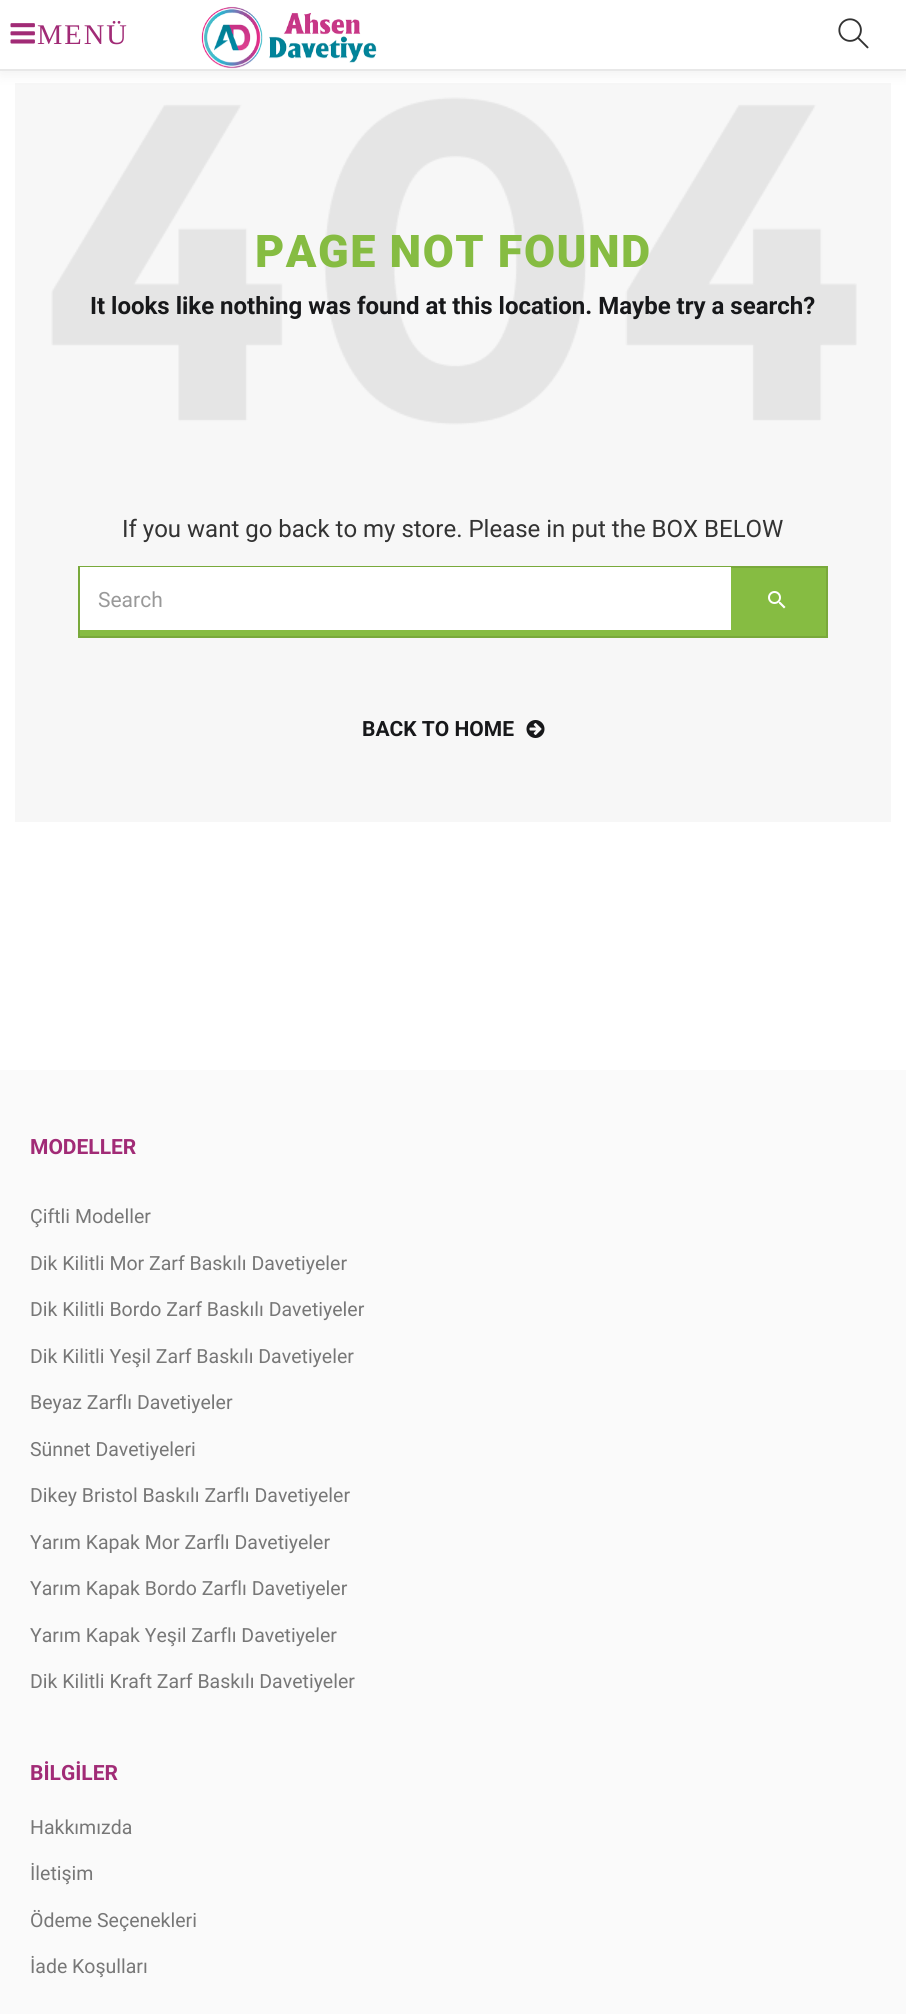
import math
import cairo


def use_color(cr, r, g, b):
  cr.set_source_rgb(r / 255, g / 255, b / 255)

def text(cr, x, y, s, family, size, color, bold=False, italic=False):
  cr.select_font_face(family, cairo.FONT_SLANT_ITALIC if italic else cairo.FONT_SLANT_NORMAL, cairo.FONT_WEIGHT_BOLD if bold else cairo.FONT_WEIGHT_NORMAL)
  cr.set_font_size(size)
  use_color(cr, *color)
  cr.move_to(x, y)
  cr.show_text(s)

def spaced_text(cr, x, y, s, letter, word):
  cr.move_to(x, y)
  for ch in s:
    cr.show_text(ch)
    cr.rel_move_to(letter + word * (ch == ' '), 0)

def box(cr, x, y, w, h, *color):
  use_color(cr, *color)
  cr.rectangle(x, y, w, h)
  cr.fill()

def round_rect(cr, x, y, w, h, r):
  cr.new_sub_path()
  for i, (u, v) in enumerate([(x + w - r, y + h - r), (x + r, y + h - r), (x + r, y + r), (x + w - r, y + r)]):
    cr.arc(u, v, r, i * math.pi / 2, (i + 1) * math.pi / 2)
  cr.close_path()

def shadow(cr, x, y, w, h, r, blur, alpha):
  cr.push_group_with_content(cairo.CONTENT_ALPHA)
  cr.set_operator(cairo.OPERATOR_SOURCE)
  for i in range(15, -16, -2):
    e = blur * i / 6
    if min(w, h) + 2 * e > 0:
      cr.set_source_rgba(0, 0, 0, alpha * math.erfc((i - 1) / 8.5) / 2)
      round_rect(cr, x - e, y - e, w + 2 * e, h + 2 * e, max(0, min(r + e + blur * .6, min(w, h) / 2 + e)))
      cr.fill()
  cr.mask(cr.pop_group())

def picture(cr, path, x, y, w, h):
  cr.save()
  cr.set_source_surface(cairo.ImageSurface.create_from_png(path), x, y)
  cr.rectangle(x, y, w, h)
  cr.fill()
  cr.restore()

def draw(cr):
  use_color(cr, 255, 255, 255)
  cr.paint()
  box(cr, 15, 83, 876, 739, 247, 247, 247)
  picture(cr, "img_04.png", 51, 97, 806, 328)
  use_color(cr, 0, 0, 0)
  shadow(cr, 0, 3, 906, 71, 0, 7.5, 0.06)
  box(cr, 0, 0, 906, 69, 255, 255, 255)
  box(cr, 0, 69, 906, 2, 232, 232, 232)
  picture(cr, "img_01.png", 10, 23, 25, 21)
  picture(cr, "img_02.png", 201, 6, 176, 63)
  picture(cr, "img_03.png", 838, 18, 31, 31)
  use_color(cr, 134, 188, 66)
  cr.rectangle(79, 567, 748, 70)
  cr.fill_preserve()
  use_color(cr, 121, 169, 59)
  cr.stroke()
  box(cr, 80, 567, 651, 63, 255, 255, 255)
  picture(cr, "img_05.png", 768, 591, 18, 18)
  picture(cr, "img_06.png", 526, 720, 19, 18)
  box(cr, 0, 1070, 906, 944, 250, 250, 250)
  cr.select_font_face("Liberation Serif")
  cr.set_font_size(28.5)
  use_color(cr, 161, 43, 118)
  spaced_text(cr, 37, 44, "MENÜ", 2, 0)
  cr.select_font_face("Roboto Black")
  cr.set_font_size(45)
  use_color(cr, 134, 188, 66)
  spaced_text(cr, 255, 267, "PAGE NOT FOUND", 1.5, 0)
  text(cr, 90, 314, "It looks like nothing was found at this location. Maybe try a search?", "Roboto", 24, (23, 24, 26), bold=True)
  text(cr, 122, 537, "If you want go back to my store. Please in put the BOX BELOW", "Roboto", 24, (51, 51, 51))
  text(cr, 98, 607, "Search", "Roboto", 21, (153, 153, 153))
  text(cr, 362, 736, "BACK TO HOME", "Roboto", 21, (23, 24, 26), bold=True)
  text(cr, 30, 1154, "MODELLER", "Roboto", 21, (161, 43, 118), bold=True)
  text(cr, 30, 1223, "Çiftli Modeller", "Roboto", 19.5, (119, 119, 119))
  text(cr, 30, 1270, "Dik Kilitli Mor Zarf Baskılı Davetiyeler", "Roboto", 19.5, (119, 119, 119))
  text(cr, 30, 1316, "Dik Kilitli Bordo Zarf Baskılı Davetiyeler", "Roboto", 19.5, (119, 119, 119))
  text(cr, 30, 1363, "Dik Kilitli Yeşil Zarf Baskılı Davetiyeler", "Roboto", 19.5, (119, 119, 119))
  text(cr, 30, 1409, "Beyaz Zarflı Davetiyeler", "Roboto", 19.5, (119, 119, 119))
  text(cr, 30, 1456, "Sünnet Davetiyeleri", "Roboto", 19.5, (119, 119, 119))
  text(cr, 30, 1502, "Dikey Bristol Baskılı Zarflı Davetiyeler", "Roboto", 19.5, (119, 119, 119))
  text(cr, 30, 1549, "Yarım Kapak Mor Zarflı Davetiyeler", "Roboto", 19.5, (119, 119, 119))
  text(cr, 30, 1595, "Yarım Kapak Bordo Zarflı Davetiyeler", "Roboto", 19.5, (119, 119, 119))
  text(cr, 30, 1642, "Yarım Kapak Yeşil Zarflı Davetiyeler", "Roboto", 19.5, (119, 119, 119))
  text(cr, 30, 1688, "Dik Kilitli Kraft Zarf Baskılı Davetiyeler", "Roboto", 19.5, (119, 119, 119))
  text(cr, 30, 1780, "BİLGİLER", "Roboto", 21, (161, 43, 118), bold=True)
  text(cr, 30, 1834, "Hakkımızda", "Roboto", 19.5, (119, 119, 119))
  text(cr, 30, 1880, "İletişim", "Roboto", 19.5, (119, 119, 119))
  text(cr, 30, 1927, "Ödeme Seçenekleri", "Roboto", 19.5, (119, 119, 119))
  text(cr, 30, 1973, "İade Koşulları", "Roboto", 19.5, (119, 119, 119))


surface = cairo.ImageSurface(cairo.FORMAT_RGB24, 906, 2014)
cr = cairo.Context(surface)
options = cairo.FontOptions()
options.set_hint_metrics(cairo.HINT_METRICS_OFF)
options.set_hint_style(cairo.HINT_STYLE_NONE)
cr.set_font_options(options)
cr.set_miter_limit(4)
draw(cr)
surface.write_to_png("out.png")
